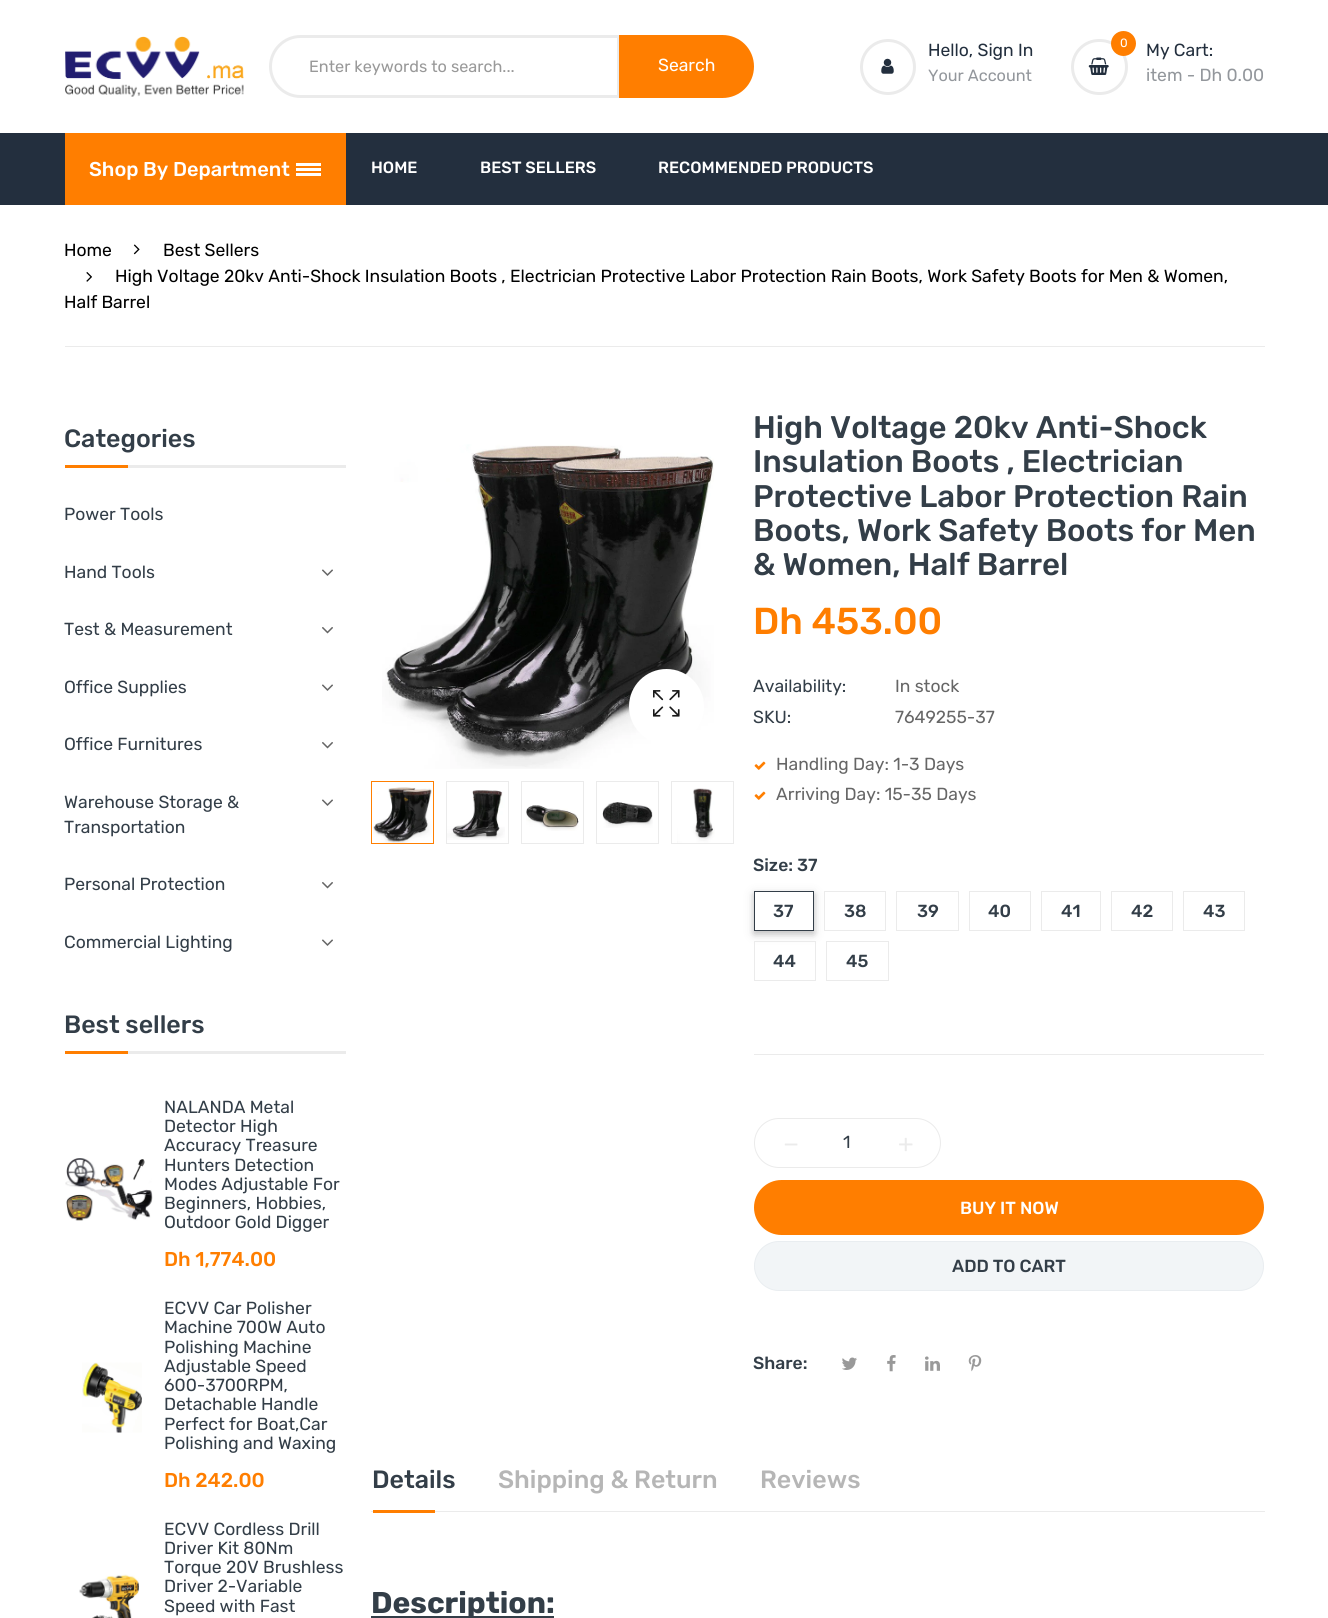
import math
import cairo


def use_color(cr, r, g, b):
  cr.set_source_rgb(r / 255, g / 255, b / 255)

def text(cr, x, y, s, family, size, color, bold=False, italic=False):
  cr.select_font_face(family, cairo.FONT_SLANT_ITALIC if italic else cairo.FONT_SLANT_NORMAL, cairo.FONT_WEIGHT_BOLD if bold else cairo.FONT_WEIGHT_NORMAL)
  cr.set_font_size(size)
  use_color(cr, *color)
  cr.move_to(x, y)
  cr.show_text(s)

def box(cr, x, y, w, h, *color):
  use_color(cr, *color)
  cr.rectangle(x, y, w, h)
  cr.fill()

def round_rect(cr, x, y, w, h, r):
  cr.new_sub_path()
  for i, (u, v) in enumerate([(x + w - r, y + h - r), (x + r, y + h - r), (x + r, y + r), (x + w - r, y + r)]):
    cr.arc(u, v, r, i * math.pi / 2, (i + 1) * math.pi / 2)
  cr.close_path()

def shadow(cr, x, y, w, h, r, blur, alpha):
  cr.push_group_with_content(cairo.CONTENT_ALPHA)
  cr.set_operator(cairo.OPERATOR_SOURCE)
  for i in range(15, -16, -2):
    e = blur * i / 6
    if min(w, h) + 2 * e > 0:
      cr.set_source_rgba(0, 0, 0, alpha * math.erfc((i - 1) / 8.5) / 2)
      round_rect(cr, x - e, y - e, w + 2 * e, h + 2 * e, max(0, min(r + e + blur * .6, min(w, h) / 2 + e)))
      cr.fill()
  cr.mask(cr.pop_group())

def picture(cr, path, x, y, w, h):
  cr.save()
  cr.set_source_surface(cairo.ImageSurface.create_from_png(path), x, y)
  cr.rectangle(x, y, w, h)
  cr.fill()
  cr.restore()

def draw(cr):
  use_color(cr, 255, 255, 255)
  cr.paint()
  picture(cr, "img_01.png", 65, 36, 179, 61)
  cr.new_path()
  cr.move_to(300.5, 36.5)
  cr.line_to(618.5, 36.5)
  cr.line_to(618.5, 96.5)
  cr.line_to(300.5, 96.5)
  cr.curve_to(284, 96.5, 270.5, 83, 270.5, 66.5)
  cr.curve_to(270.5, 50, 284, 36.5, 300.5, 36.5)
  cr.close_path()
  use_color(cr, 235, 235, 235)
  cr.set_line_width(3)
  cr.stroke()
  use_color(cr, 255, 126, 0)
  cr.new_path()
  cr.move_to(619, 35)
  cr.line_to(722.5, 35)
  cr.curve_to(740, 35, 754, 49, 754, 66.5)
  cr.curve_to(754, 84, 740, 98, 722.5, 98)
  cr.line_to(619, 98)
  cr.close_path()
  cr.fill()
  cr.arc(888, 67, 26.5, 0, 2 * math.pi)
  use_color(cr, 235, 235, 235)
  cr.stroke()
  picture(cr, "img_02.png", 881, 58, 13, 16)
  round_rect(cr, 1072.5, 40.5, 54, 53, 26.5)
  cr.stroke()
  picture(cr, "img_03.png", 1088, 57, 21, 18)
  use_color(cr, 255, 126, 0)
  cr.arc(1123.5, 43.5, 12.5, 0, 2 * math.pi)
  cr.fill()
  box(cr, 0, 133, 1328, 72, 35, 47, 62)
  box(cr, 65, 133, 281, 72, 255, 126, 0)
  box(cr, 296, 163, 25, 3, 255, 255, 255)
  box(cr, 296, 168, 25, 3, 255, 255, 255)
  box(cr, 296, 173, 25, 3, 255, 255, 255)
  box(cr, 65, 346, 1200, 1, 235, 235, 235)
  picture(cr, "img_04.png", 133, 244, 7, 11)
  picture(cr, "img_05.png", 86, 272, 6, 10)
  box(cr, 128, 465, 218, 3, 235, 235, 235)
  box(cr, 65, 465, 63, 3, 255, 126, 0)
  picture(cr, "img_06.png", 322, 569, 11, 7)
  picture(cr, "img_07.png", 322, 627, 11, 7)
  picture(cr, "img_06.png", 322, 684, 11, 7)
  picture(cr, "img_07.png", 322, 742, 11, 7)
  picture(cr, "img_06.png", 322, 799, 11, 7)
  picture(cr, "img_07.png", 322, 882, 11, 7)
  picture(cr, "img_06.png", 322, 939, 11, 7)
  box(cr, 128, 1051, 218, 3, 235, 235, 235)
  box(cr, 65, 1051, 63, 3, 255, 126, 0)
  picture(cr, "img_08.png", 65, 1158, 88, 63)
  picture(cr, "img_09.png", 82, 1362, 60, 71)
  picture(cr, "img_10.png", 79, 1574, 60, 44)
  picture(cr, "img_11.png", 382, 444, 332, 325)
  use_color(cr, 255, 255, 255)
  cr.arc(666.5, 706.5, 37.5, 0, 2 * math.pi)
  cr.fill()
  picture(cr, "img_12.png", 653, 690, 27, 27)
  picture(cr, "img_13.png", 373, 787, 59, 56)
  cr.rectangle(371.5, 781.5, 62, 62)
  use_color(cr, 255, 126, 0)
  cr.set_line_width(1)
  cr.stroke()
  picture(cr, "img_14.png", 447, 790, 58, 50)
  cr.rectangle(446.5, 781.5, 62, 62)
  use_color(cr, 235, 235, 235)
  cr.stroke()
  picture(cr, "img_15.png", 526, 805, 53, 26)
  cr.rectangle(521.5, 781.5, 62, 62)
  cr.stroke()
  picture(cr, "img_16.png", 602, 802, 51, 26)
  cr.rectangle(596.5, 781.5, 62, 62)
  cr.stroke()
  picture(cr, "img_17.png", 677, 788, 38, 55)
  cr.rectangle(671.5, 781.5, 62, 62)
  cr.stroke()
  picture(cr, "img_18.png", 754, 761, 12, 9)
  picture(cr, "img_18.png", 754, 791, 12, 9)
  use_color(cr, 0, 0, 0)
  shadow(cr, 754, 894, 60, 40, 0, 6, 0.12)
  shadow(cr, 754, 894, 60, 40, 0, 3, 0.16)
  use_color(cr, 255, 255, 255)
  cr.rectangle(754.5, 891.5, 59, 39)
  cr.fill_preserve()
  use_color(cr, 51, 62, 72)
  cr.stroke()
  cr.rectangle(824.5, 891.5, 61, 39)
  use_color(cr, 235, 235, 235)
  cr.stroke()
  cr.rectangle(896.5, 891.5, 62, 39)
  cr.stroke()
  cr.rectangle(969.5, 891.5, 61, 39)
  cr.stroke()
  cr.rectangle(1041.5, 891.5, 59, 39)
  cr.stroke()
  cr.rectangle(1111.5, 891.5, 61, 39)
  cr.stroke()
  cr.rectangle(1183.5, 891.5, 61, 39)
  cr.stroke()
  cr.rectangle(754.5, 941.5, 61, 39)
  cr.stroke()
  cr.rectangle(826.5, 941.5, 62, 39)
  cr.stroke()
  box(cr, 754, 1054, 510, 1, 235, 235, 235)
  round_rect(cr, 754.5, 1118.5, 186, 49, 24.5)
  cr.stroke()
  use_color(cr, 255, 126, 0)
  round_rect(cr, 755.5, 1181.5, 507, 52, 26)
  cr.fill_preserve()
  cr.set_line_width(3)
  cr.stroke()
  use_color(cr, 242, 245, 247)
  round_rect(cr, 754.5, 1241.5, 509, 49, 24.5)
  cr.fill_preserve()
  use_color(cr, 233, 237, 240)
  cr.set_line_width(1)
  cr.stroke()
  picture(cr, "img_19.png", 842, 1357, 15, 13)
  picture(cr, "img_20.png", 887, 1355, 9, 17)
  picture(cr, "img_21.png", 925, 1356, 15, 15)
  picture(cr, "img_22.png", 968, 1355, 14, 17)
  box(cr, 371, 1511, 894, 1, 235, 235, 235)
  box(cr, 373, 1510, 62, 3, 255, 126, 0)
  box(cr, 371, 1616, 183, 2, 51, 62, 72)
  text(cr, 309, 72, "Enter keywords to search...", "Rubik", 16.25, (153, 153, 153))
  text(cr, 658, 71, "Search", "Rubik", 17.5, (255, 255, 255))
  text(cr, 928, 56, "Hello, Sign In", "Rubik", 17.5, (35, 47, 62))
  text(cr, 928, 81, "Your Account", "Rubik", 16.25, (147, 151, 156))
  text(cr, 1120, 47, "0", "Rubik", 12, (255, 255, 255))
  text(cr, 1146, 81, "item - Dh 0.00", "Rubik", 17.5, (147, 151, 156))
  text(cr, 1146, 56, "My Cart:", "Rubik", 17.5, (35, 47, 62))
  text(cr, 89, 176, "Shop By Department", "Rubik Medium", 20, (255, 255, 255))
  text(cr, 371, 173, "HOME", "Rubik Medium", 16.25, (255, 255, 255))
  text(cr, 480, 173, "BEST SELLERS", "Rubik Medium", 16.25, (255, 255, 255))
  text(cr, 658, 173, "RECOMMENDED PRODUCTS", "Rubik Medium", 16.25, (255, 255, 255))
  text(cr, 64, 256, "Home", "Rubik", 17.5, (0, 0, 0))
  text(cr, 163, 256, "Best Sellers", "Rubik", 17.5, (0, 0, 0))
  text(cr, 115, 282, "High Voltage 20kv Anti-Shock Insulation Boots , Electrician Protective Labor Protection Rain Boots, Work Safety Boots for Men & Women,", "Rubik", 17.5, (0, 0, 0))
  text(cr, 64, 308, "Half Barrel", "Rubik", 17.5, (0, 0, 0))
  text(cr, 64, 447, "Categories", "Rubik Medium", 25, (51, 62, 72))
  text(cr, 64, 520, "Power Tools", "Rubik", 17.5, (51, 62, 72))
  text(cr, 64, 578, "Hand Tools", "Rubik", 17.5, (51, 62, 72))
  text(cr, 64, 635, "Test & Measurement", "Rubik", 17.5, (51, 62, 72))
  text(cr, 64, 693, "Office Supplies", "Rubik", 17.5, (51, 62, 72))
  text(cr, 64, 750, "Office Furnitures", "Rubik", 17.5, (51, 62, 72))
  text(cr, 64, 808, "Warehouse Storage &", "Rubik", 17.5, (51, 62, 72))
  text(cr, 64, 833, "Transportation", "Rubik", 17.5, (51, 62, 72))
  text(cr, 64, 890, "Personal Protection", "Rubik", 17.5, (51, 62, 72))
  text(cr, 64, 948, "Commercial Lighting", "Rubik", 17.5, (51, 62, 72))
  text(cr, 64, 1033, "Best sellers", "Rubik Medium", 25, (51, 62, 72))
  text(cr, 164, 1113, "NALANDA Metal", "Rubik", 17.5, (51, 62, 72))
  text(cr, 164, 1132, "Detector High", "Rubik", 17.5, (51, 62, 72))
  text(cr, 164, 1151, "Accuracy Treasure", "Rubik", 17.5, (51, 62, 72))
  text(cr, 164, 1171, "Hunters Detection", "Rubik", 17.5, (51, 62, 72))
  text(cr, 164, 1190, "Modes Adjustable For", "Rubik", 17.5, (51, 62, 72))
  text(cr, 164, 1209, "Beginners, Hobbies,", "Rubik", 17.5, (51, 62, 72))
  text(cr, 164, 1228, "Outdoor Gold Digger", "Rubik", 17.5, (51, 62, 72))
  text(cr, 164, 1266, "Dh 1,774.00", "Rubik Medium", 20, (255, 126, 0))
  text(cr, 164, 1314, "ECVV Car Polisher", "Rubik", 17.5, (51, 62, 72))
  text(cr, 164, 1333, "Machine 700W Auto", "Rubik", 17.5, (51, 62, 72))
  text(cr, 164, 1353, "Polishing Machine", "Rubik", 17.5, (51, 62, 72))
  text(cr, 164, 1372, "Adjustable Speed", "Rubik", 17.5, (51, 62, 72))
  text(cr, 164, 1391, "600-3700RPM,", "Rubik", 17.5, (51, 62, 72))
  text(cr, 164, 1410, "Detachable Handle", "Rubik", 17.5, (51, 62, 72))
  text(cr, 164, 1430, "Perfect for Boat,Car", "Rubik", 17.5, (51, 62, 72))
  text(cr, 164, 1449, "Polishing and Waxing", "Rubik", 17.5, (51, 62, 72))
  text(cr, 164, 1487, "Dh 242.00", "Rubik Medium", 20, (255, 126, 0))
  text(cr, 164, 1535, "ECVV Cordless Drill", "Rubik", 17.5, (51, 62, 72))
  text(cr, 164, 1554, "Driver Kit 80Nm", "Rubik", 17.5, (51, 62, 72))
  text(cr, 164, 1573, "Torque 20V Brushless", "Rubik", 17.5, (51, 62, 72))
  text(cr, 164, 1592, "Driver 2-Variable", "Rubik", 17.5, (51, 62, 72))
  text(cr, 164, 1612, "Speed with Fast", "Rubik", 17.5, (51, 62, 72))
  text(cr, 753, 438, "High Voltage 20kv Anti-Shock", "Rubik Medium", 31.25, (51, 62, 72))
  text(cr, 753, 472, "Insulation Boots , Electrician", "Rubik Medium", 31.25, (51, 62, 72))
  text(cr, 753, 507, "Protective Labor Protection Rain", "Rubik Medium", 31.25, (51, 62, 72))
  text(cr, 753, 541, "Boots, Work Safety Boots for Men", "Rubik Medium", 31.25, (51, 62, 72))
  text(cr, 753, 575, "& Women, Half Barrel", "Rubik Medium", 31.25, (51, 62, 72))
  text(cr, 753, 634, "Dh 453.00", "Rubik Medium", 37.5, (255, 126, 0))
  text(cr, 753, 692, "Availability:", "Rubik", 17.5, (51, 62, 72))
  text(cr, 895, 692, "In stock", "Rubik", 17.5, (102, 102, 102))
  text(cr, 753, 723, "SKU:", "Rubik", 17.5, (51, 62, 72))
  text(cr, 895, 723, "7649255-37", "Rubik", 17.5, (102, 102, 102))
  text(cr, 776, 770, "Handling Day: 1-3 Days", "Rubik", 17.5, (102, 102, 102))
  text(cr, 776, 800, "Arriving Day: 15-35 Days", "Rubik", 17.5, (102, 102, 102))
  text(cr, 753, 871, "Size: 37", "Rubik Medium", 17.5, (51, 62, 72))
  text(cr, 773, 917, "37", "Rubik Medium", 17.5, (51, 62, 72))
  text(cr, 844, 917, "38", "Rubik Medium", 17.5, (51, 62, 72))
  text(cr, 917, 917, "39", "Rubik Medium", 17.5, (51, 62, 72))
  text(cr, 988, 917, "40", "Rubik Medium", 17.5, (51, 62, 72))
  text(cr, 1061, 917, "41", "Rubik Medium", 17.5, (51, 62, 72))
  text(cr, 1131, 917, "42", "Rubik Medium", 17.5, (51, 62, 72))
  text(cr, 1203, 917, "43", "Rubik Medium", 17.5, (51, 62, 72))
  text(cr, 773, 967, "44", "Rubik Medium", 17.5, (51, 62, 72))
  text(cr, 846, 967, "45", "Rubik Medium", 17.5, (51, 62, 72))
  text(cr, 783, 1152, "−", "Rubik", 25, (235, 235, 235))
  text(cr, 843, 1148, "1", "Rubik", 17.5, (51, 62, 72))
  text(cr, 898, 1152, "+", "Rubik", 25, (235, 235, 235))
  text(cr, 960, 1214, "BUY IT NOW", "Rubik Medium", 17.5, (255, 255, 255))
  text(cr, 952, 1272, "ADD TO CART", "Rubik Medium", 17.5, (51, 62, 72))
  text(cr, 753, 1369, "Share:", "Rubik Medium", 17.5, (51, 62, 72))
  text(cr, 372, 1488, "Details", "Rubik Medium", 25, (51, 62, 72))
  text(cr, 498, 1488, "Shipping & Return", "Rubik Medium", 25, (182, 182, 182))
  text(cr, 760, 1488, "Reviews", "Rubik Medium", 25, (182, 182, 182))
  text(cr, 371, 1613, "Description:", "Rubik", 30, (51, 62, 72), bold=True)


surface = cairo.ImageSurface(cairo.FORMAT_RGB24, 1328, 1618)
cr = cairo.Context(surface)
options = cairo.FontOptions()
options.set_hint_metrics(cairo.HINT_METRICS_OFF)
options.set_hint_style(cairo.HINT_STYLE_NONE)
cr.set_font_options(options)
cr.set_miter_limit(4)
draw(cr)
surface.write_to_png("out.png")
